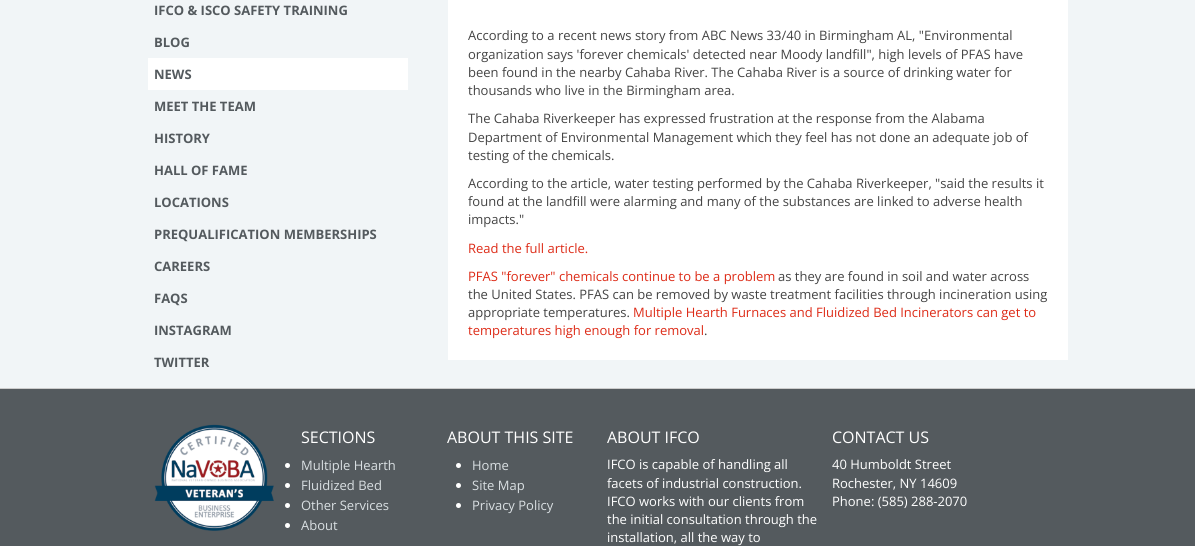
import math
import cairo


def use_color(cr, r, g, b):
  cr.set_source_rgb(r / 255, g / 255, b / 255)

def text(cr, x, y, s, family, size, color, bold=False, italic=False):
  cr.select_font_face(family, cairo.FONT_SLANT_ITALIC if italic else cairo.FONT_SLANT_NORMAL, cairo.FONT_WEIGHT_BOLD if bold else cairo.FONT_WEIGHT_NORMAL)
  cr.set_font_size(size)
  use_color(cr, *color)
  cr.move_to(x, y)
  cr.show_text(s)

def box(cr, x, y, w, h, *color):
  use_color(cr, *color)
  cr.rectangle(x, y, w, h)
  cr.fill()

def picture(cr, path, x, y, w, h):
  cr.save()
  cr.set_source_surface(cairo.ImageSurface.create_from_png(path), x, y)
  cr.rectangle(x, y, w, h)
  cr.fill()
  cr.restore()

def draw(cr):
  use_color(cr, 241, 245, 247)
  cr.paint()
  box(cr, 148, 58, 260, 32, 255, 255, 255)
  box(cr, 448, 0, 620, 360, 255, 255, 255)
  box(cr, 0, 389, 1195, 157, 84, 90, 94)
  box(cr, 0, 388, 1195, 1, 204, 204, 204)
  picture(cr, "img_01.png", 154, 424, 120, 107)
  use_color(cr, 255, 255, 255)
  cr.arc(287.5, 465.5, 2.5, 0, 2 * math.pi)
  cr.fill()
  cr.arc(287.5, 485.5, 2.5, 0, 2 * math.pi)
  cr.fill()
  cr.arc(287.5, 505.5, 2.5, 0, 2 * math.pi)
  cr.fill()
  cr.arc(287.5, 525.5, 2.5, 0, 2 * math.pi)
  cr.fill()
  cr.arc(458.5, 465.5, 2.5, 0, 2 * math.pi)
  cr.fill()
  cr.arc(458.5, 485.5, 2.5, 0, 2 * math.pi)
  cr.fill()
  cr.arc(458.5, 505.5, 2.5, 0, 2 * math.pi)
  cr.fill()
  text(cr, 154, 15, "IFCO & ISCO SAFETY TRAINING", "Open Sans", 13, (84, 90, 94), bold=True)
  text(cr, 154, 47, "BLOG", "Open Sans", 13, (84, 90, 94), bold=True)
  text(cr, 154, 79, "NEWS", "Open Sans", 13, (84, 90, 94), bold=True)
  text(cr, 154, 111, "MEET THE TEAM", "Open Sans", 13, (84, 90, 94), bold=True)
  text(cr, 154, 143, "HISTORY", "Open Sans", 13, (84, 90, 94), bold=True)
  text(cr, 154, 175, "HALL OF FAME", "Open Sans", 13, (84, 90, 94), bold=True)
  text(cr, 154, 207, "LOCATIONS", "Open Sans", 13, (84, 90, 94), bold=True)
  text(cr, 154, 239, "PREQUALIFICATION MEMBERSHIPS", "Open Sans", 13, (84, 90, 94), bold=True)
  text(cr, 154, 271, "CAREERS", "Open Sans", 13, (84, 90, 94), bold=True)
  text(cr, 154, 303, "FAQS", "Open Sans", 13, (84, 90, 94), bold=True)
  text(cr, 154, 335, "INSTAGRAM", "Open Sans", 13, (84, 90, 94), bold=True)
  text(cr, 154, 367, "TWITTER", "Open Sans", 13, (84, 90, 94), bold=True)
  text(cr, 468, 40, "According to a recent news story from ABC News 33/40 in Birmingham AL, \"Environmental", "Open Sans", 13, (68, 68, 68))
  text(cr, 468, 59, "organization says 'forever chemicals' detected near Moody landfill\", high levels of PFAS have", "Open Sans", 13, (68, 68, 68))
  text(cr, 468, 77, "been found in the nearby Cahaba River. The Cahaba River is a source of drinking water for", "Open Sans", 13, (68, 68, 68))
  text(cr, 468, 95, "thousands who live in the Birmingham area.", "Open Sans", 13, (68, 68, 68))
  text(cr, 468, 123, "The Cahaba Riverkeeper has expressed frustration at the response from the Alabama", "Open Sans", 13, (68, 68, 68))
  text(cr, 468, 142, "Department of Environmental Management which they feel has not done an adequate job of", "Open Sans", 13, (68, 68, 68))
  text(cr, 468, 160, "testing of the chemicals.", "Open Sans", 13, (68, 68, 68))
  text(cr, 468, 188, "According to the article, water testing performed by the Cahaba Riverkeeper, \"said the results it", "Open Sans", 13, (68, 68, 68))
  text(cr, 468, 206, "found at the landfill were alarming and many of the substances are linked to adverse health", "Open Sans", 13, (68, 68, 68))
  text(cr, 468, 224, "impacts.\"", "Open Sans", 13, (68, 68, 68))
  text(cr, 468, 253, "Read the full article.", "Open Sans", 13, (221, 43, 23))
  text(cr, 468, 281, "PFAS \"forever\" chemicals continue to be a problem", "Open Sans", 13, (221, 43, 23))
  text(cr, 778, 281, "as they are found in soil and water across", "Open Sans", 13, (68, 68, 68))
  text(cr, 468, 299, "the United States. PFAS can be removed by waste treatment facilities through incineration using", "Open Sans", 13, (68, 68, 68))
  text(cr, 468, 317, "appropriate temperatures.", "Open Sans", 13, (68, 68, 68))
  text(cr, 633, 317, "Multiple Hearth Furnaces and Fluidized Bed Incinerators can get to", "Open Sans", 13, (221, 43, 23))
  text(cr, 468, 335, "temperatures high enough for removal", "Open Sans", 13, (221, 43, 23))
  text(cr, 704, 335, ".", "Open Sans", 13, (68, 68, 68))
  text(cr, 301, 443, "SECTIONS", "Open Sans", 16, (255, 255, 255))
  text(cr, 301, 470, "Multiple Hearth", "Open Sans", 13, (217, 223, 226))
  text(cr, 301, 490, "Fluidized Bed", "Open Sans", 13, (217, 223, 226))
  text(cr, 301, 510, "Other Services", "Open Sans", 13, (217, 223, 226))
  text(cr, 301, 530, "About", "Open Sans", 13, (217, 223, 226))
  text(cr, 447, 443, "ABOUT THIS SITE", "Open Sans", 16, (255, 255, 255))
  text(cr, 472, 470, "Home", "Open Sans", 13, (217, 223, 226))
  text(cr, 472, 490, "Site Map", "Open Sans", 13, (217, 223, 226))
  text(cr, 472, 510, "Privacy Policy", "Open Sans", 13, (217, 223, 226))
  text(cr, 607, 443, "ABOUT IFCO", "Open Sans", 16, (255, 255, 255))
  text(cr, 607, 469, "IFCO is capable of handling all", "Open Sans", 13, (255, 255, 255))
  text(cr, 607, 488, "facets of industrial construction.", "Open Sans", 13, (255, 255, 255))
  text(cr, 607, 506, "IFCO works with our clients from", "Open Sans", 13, (255, 255, 255))
  text(cr, 607, 524, "the initial consultation through the", "Open Sans", 13, (255, 255, 255))
  text(cr, 607, 542, "installation, all the way to", "Open Sans", 13, (255, 255, 255))
  text(cr, 832, 443, "CONTACT US", "Open Sans", 16, (255, 255, 255))
  text(cr, 832, 469, "40 Humboldt Street", "Open Sans", 13, (255, 255, 255))
  text(cr, 832, 488, "Rochester, NY 14609", "Open Sans", 13, (255, 255, 255))
  text(cr, 832, 506, "Phone: (585) 288-2070", "Open Sans", 13, (255, 255, 255))


surface = cairo.ImageSurface(cairo.FORMAT_RGB24, 1195, 546)
cr = cairo.Context(surface)
options = cairo.FontOptions()
options.set_hint_metrics(cairo.HINT_METRICS_OFF)
options.set_hint_style(cairo.HINT_STYLE_NONE)
cr.set_font_options(options)
cr.set_miter_limit(4)
draw(cr)
surface.write_to_png("out.png")
